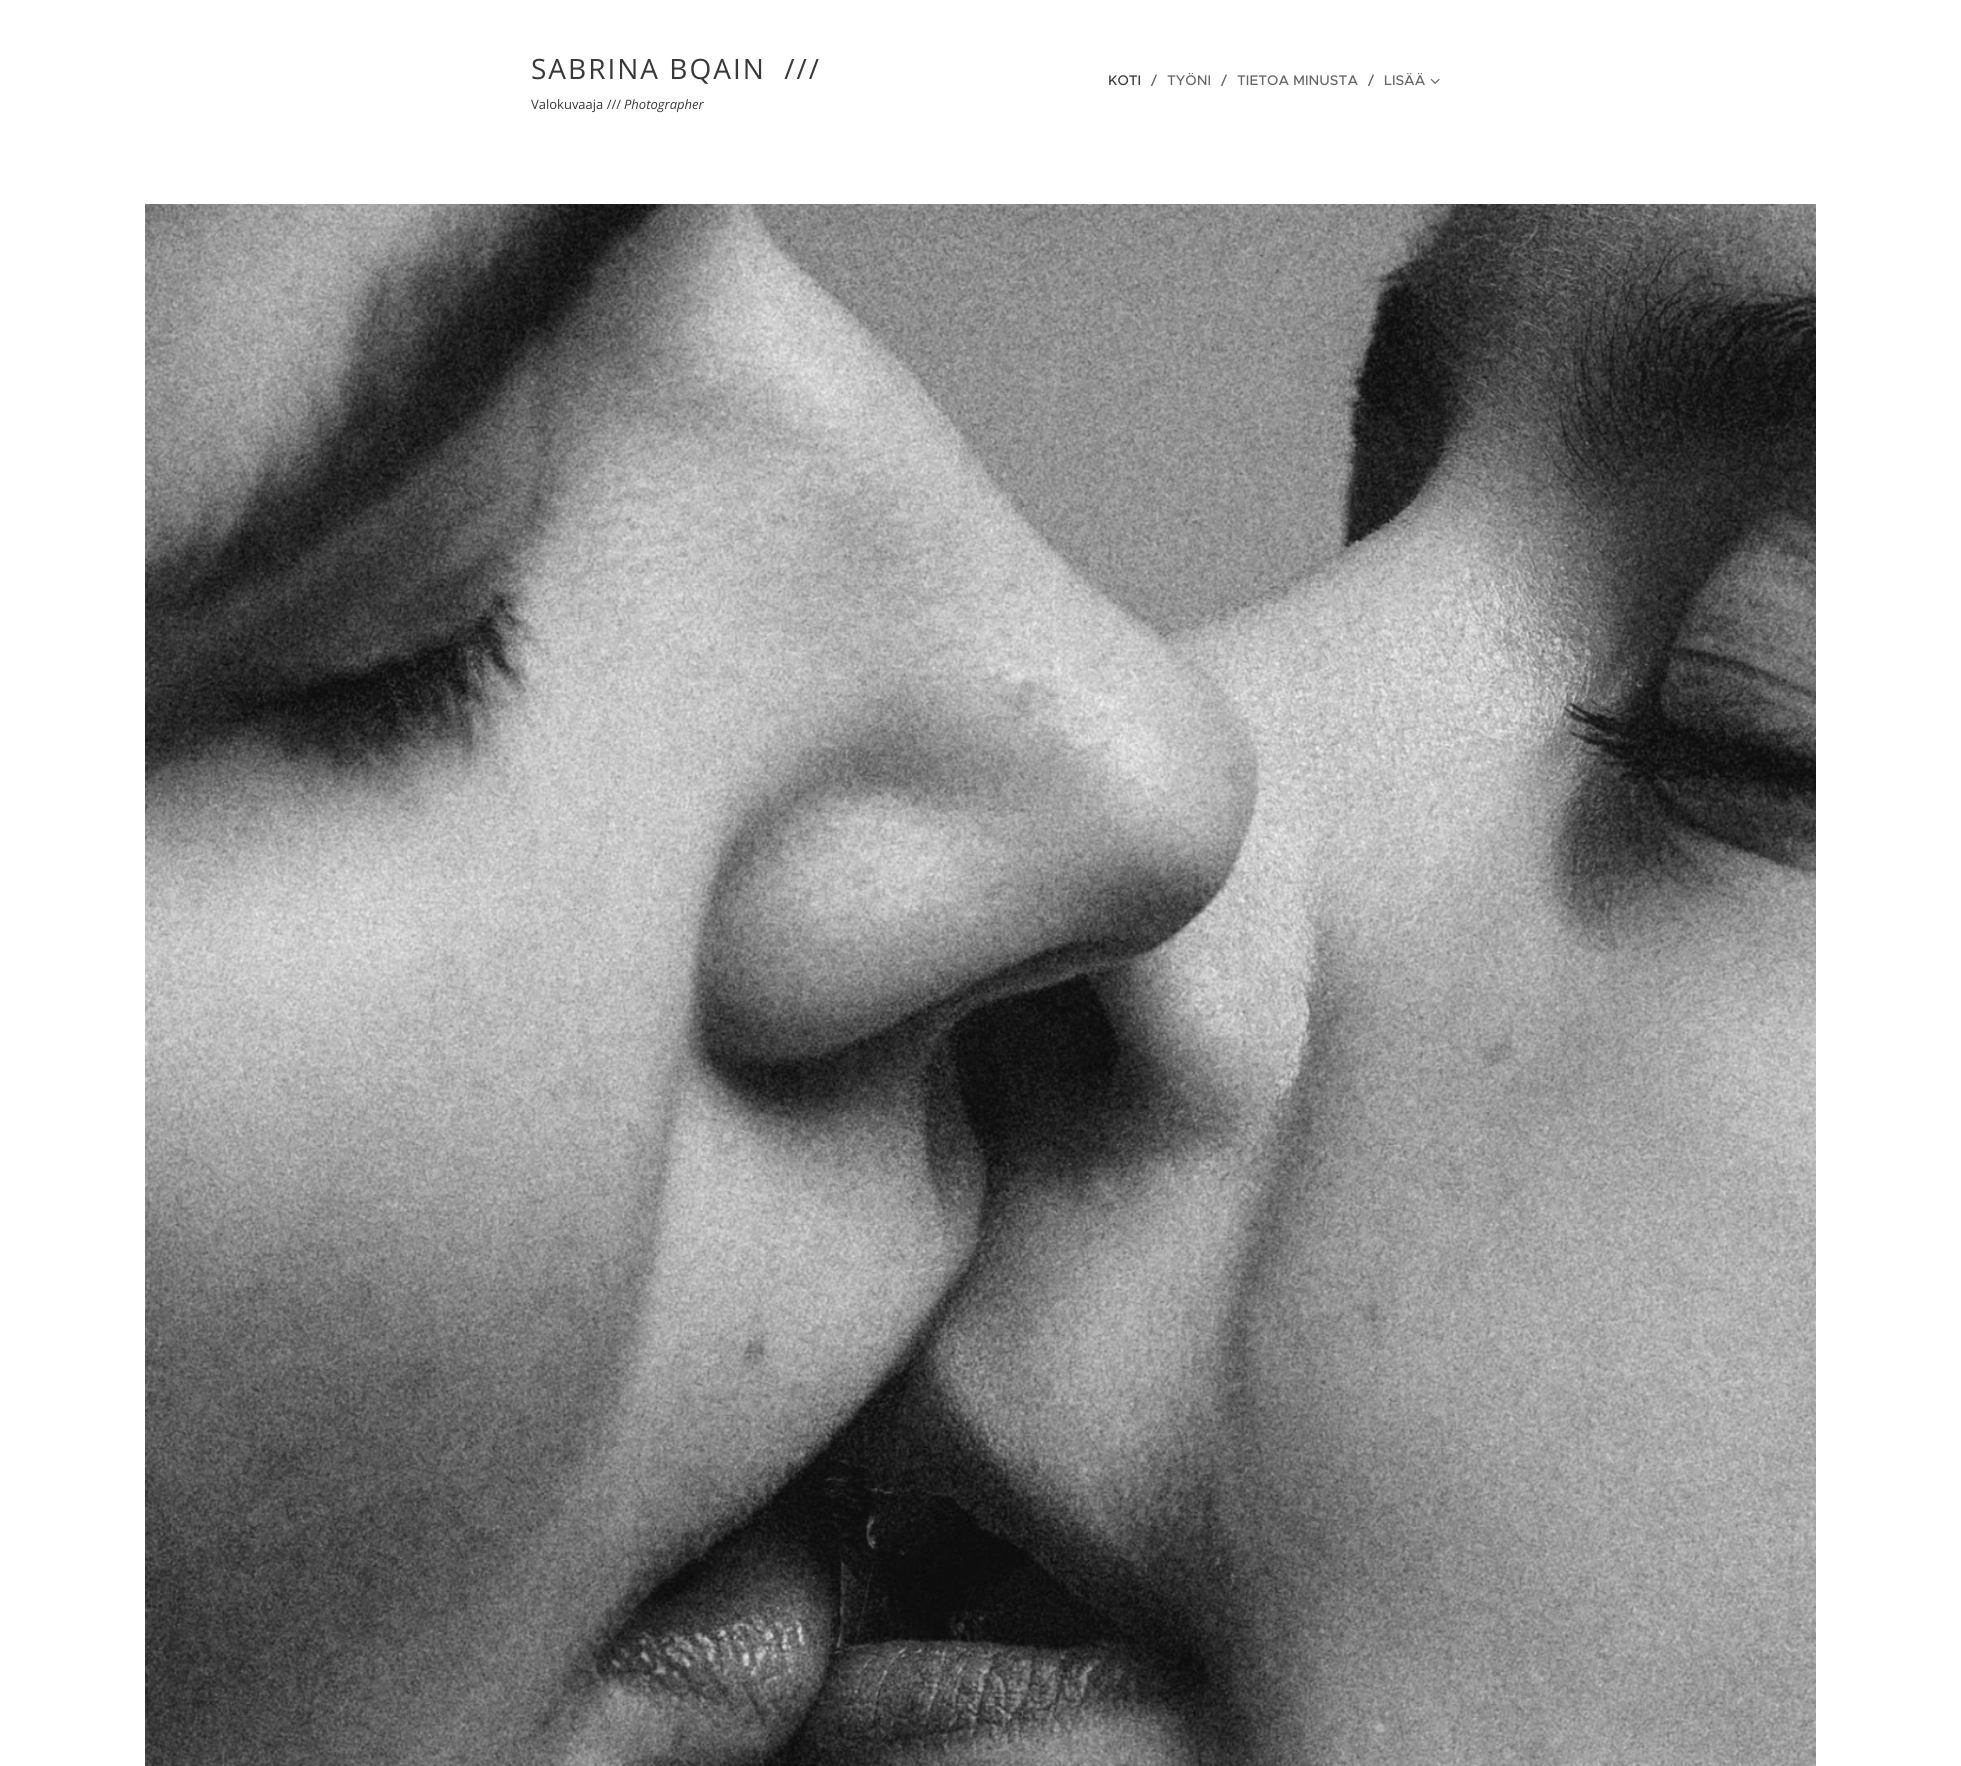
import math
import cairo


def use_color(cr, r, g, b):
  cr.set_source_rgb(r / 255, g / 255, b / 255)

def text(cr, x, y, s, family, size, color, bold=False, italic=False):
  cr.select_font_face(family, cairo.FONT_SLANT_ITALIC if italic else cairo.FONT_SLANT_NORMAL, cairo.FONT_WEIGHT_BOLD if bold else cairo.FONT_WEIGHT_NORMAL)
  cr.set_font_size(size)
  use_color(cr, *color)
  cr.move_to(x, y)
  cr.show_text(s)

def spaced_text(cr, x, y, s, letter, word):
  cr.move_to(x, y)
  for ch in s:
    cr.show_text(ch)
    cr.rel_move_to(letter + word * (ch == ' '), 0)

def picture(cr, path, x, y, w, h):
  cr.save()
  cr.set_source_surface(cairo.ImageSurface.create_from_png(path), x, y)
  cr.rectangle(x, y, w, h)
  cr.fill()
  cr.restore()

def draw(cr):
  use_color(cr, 255, 255, 255)
  cr.paint()
  picture(cr, "img_01.png", 1430, 78, 10, 6)
  picture(cr, "img_02.png", 145, 204, 1671, 1562)
  cr.select_font_face("Open Sans")
  cr.set_font_size(28)
  use_color(cr, 57, 57, 57)
  spaced_text(cr, 531, 79, "SABRINA BQAIN  ///", 2, 0)
  text(cr, 531, 109, "Valokuvaaja ///", "Open Sans", 13, (57, 57, 57))
  text(cr, 624, 109, "Photographer", "Open Sans", 13, (57, 57, 57), italic=True)
  text(cr, 1108, 85, "KOTI", "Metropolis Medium", 14, (57, 57, 57))
  text(cr, 1151, 85, "/", "Metropolis Medium", 14, (102, 102, 102))
  text(cr, 1167, 85, "TYÖNI", "Metropolis Medium", 14, (102, 102, 102))
  text(cr, 1221, 85, "/", "Metropolis Medium", 14, (102, 102, 102))
  text(cr, 1237, 85, "TIETOA MINUSTA", "Metropolis Medium", 14, (102, 102, 102))
  text(cr, 1368, 85, "/", "Metropolis Medium", 14, (102, 102, 102))
  text(cr, 1384, 85, "LISÄÄ", "Metropolis Medium", 14, (102, 102, 102))


surface = cairo.ImageSurface(cairo.FORMAT_RGB24, 1961, 1766)
cr = cairo.Context(surface)
options = cairo.FontOptions()
options.set_hint_metrics(cairo.HINT_METRICS_OFF)
options.set_hint_style(cairo.HINT_STYLE_NONE)
cr.set_font_options(options)
cr.set_miter_limit(4)
draw(cr)
surface.write_to_png("out.png")
